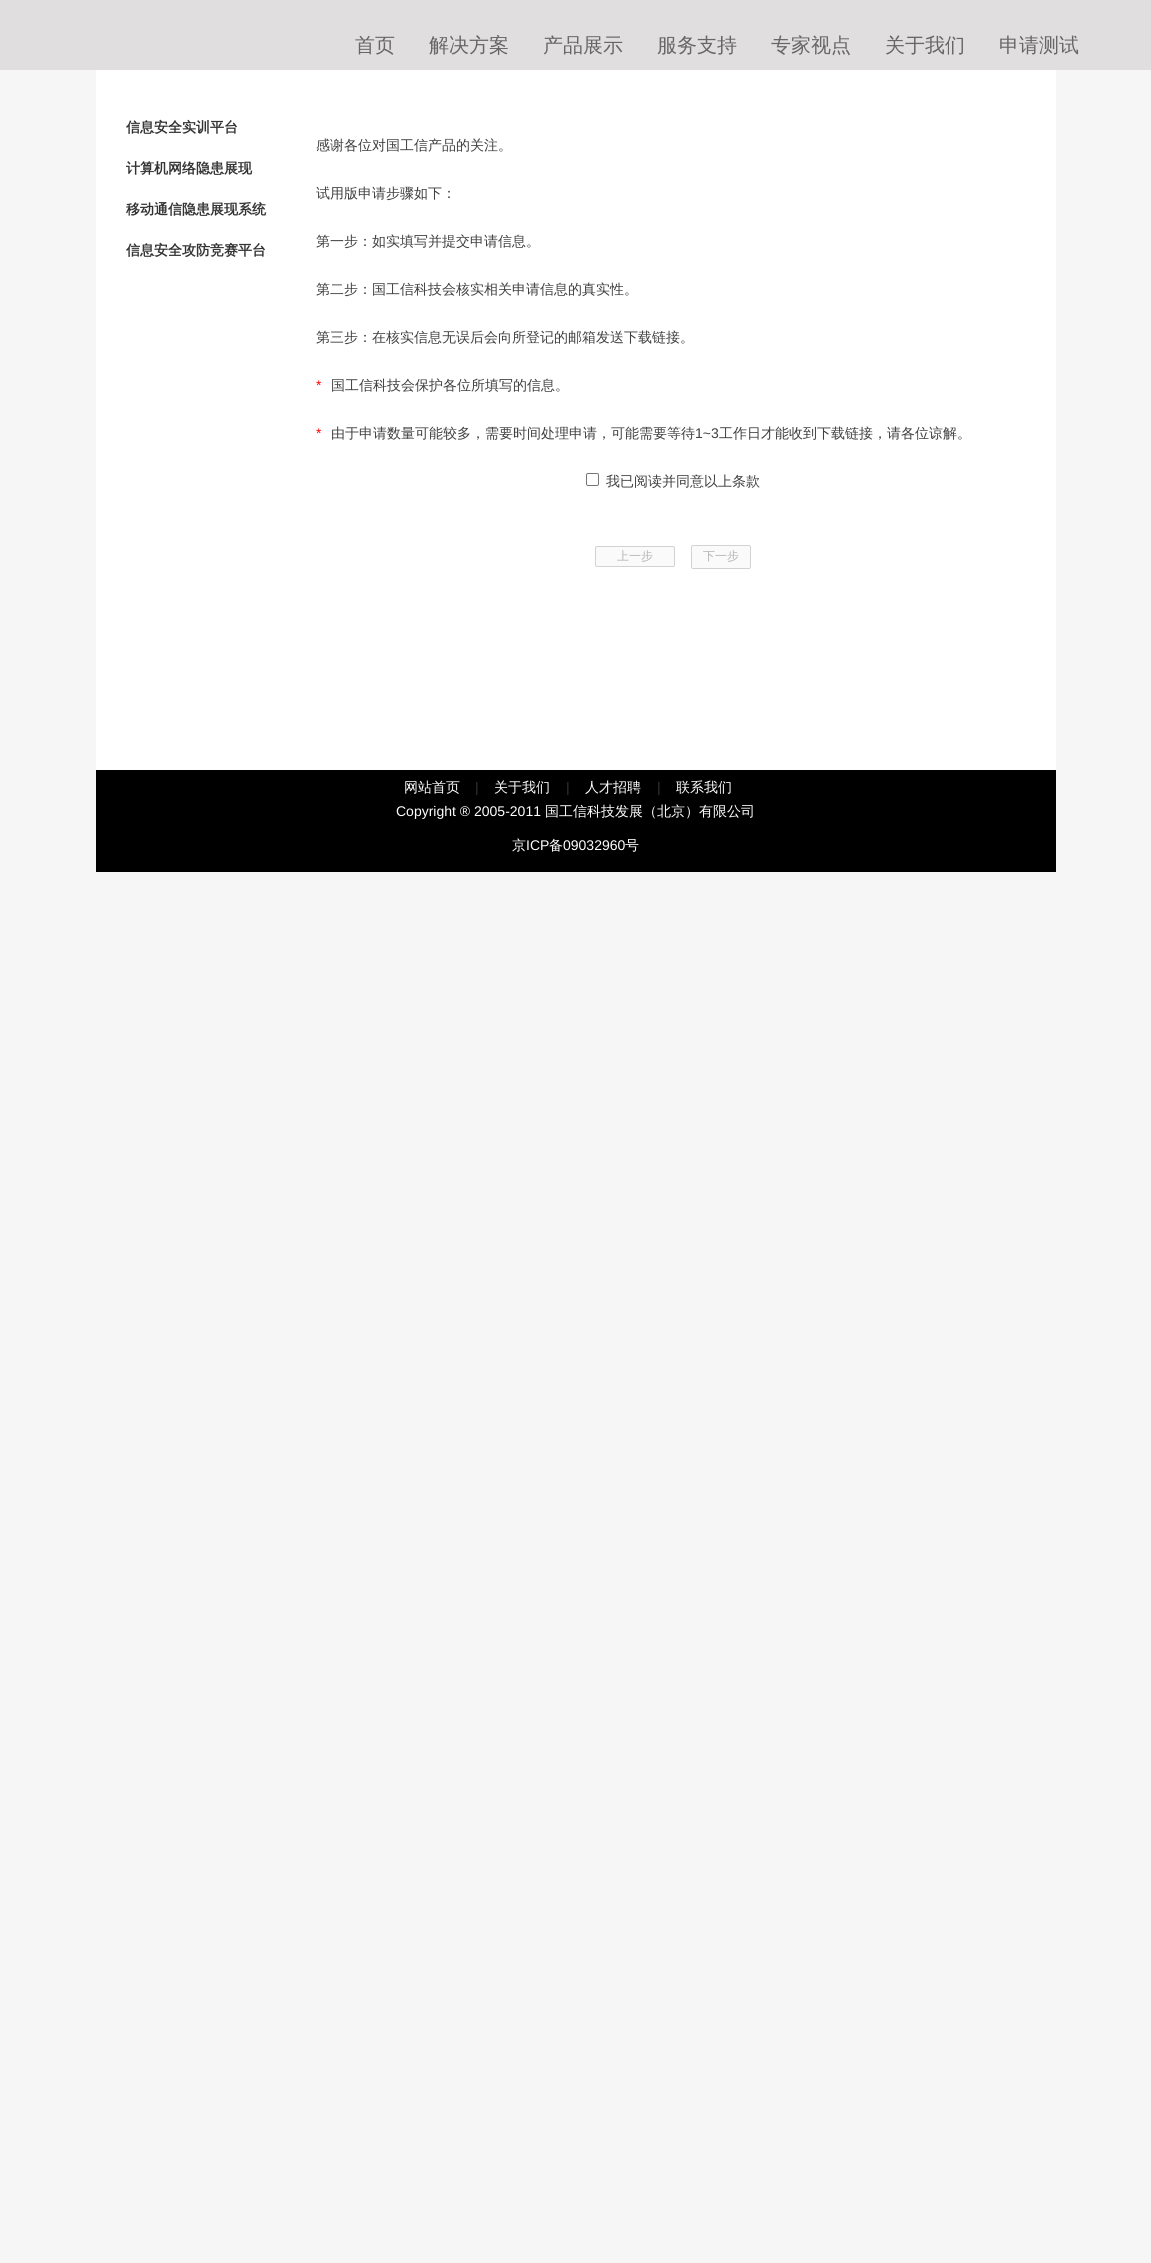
import math
import cairo


def use_color(cr, r, g, b):
  cr.set_source_rgb(r / 255, g / 255, b / 255)

def text(cr, x, y, s, family, size, color, bold=False, italic=False):
  cr.select_font_face(family, cairo.FONT_SLANT_ITALIC if italic else cairo.FONT_SLANT_NORMAL, cairo.FONT_WEIGHT_BOLD if bold else cairo.FONT_WEIGHT_NORMAL)
  cr.set_font_size(size)
  use_color(cr, *color)
  cr.move_to(x, y)
  cr.show_text(s)

def box(cr, x, y, w, h, *color):
  use_color(cr, *color)
  cr.rectangle(x, y, w, h)
  cr.fill()

def round_rect(cr, x, y, w, h, r):
  cr.new_sub_path()
  for i, (u, v) in enumerate([(x + w - r, y + h - r), (x + r, y + h - r), (x + r, y + r), (x + w - r, y + r)]):
    cr.arc(u, v, r, i * math.pi / 2, (i + 1) * math.pi / 2)
  cr.close_path()

def draw(cr):
  use_color(cr, 246, 246, 246)
  cr.paint()
  box(cr, 0, 0, 1151, 70, 224, 222, 223)
  box(cr, 96, 70, 960, 700, 255, 255, 255)
  round_rect(cr, 586.5, 473.5, 12, 12, 1.5)
  use_color(cr, 118, 118, 118)
  cr.set_line_width(1)
  cr.stroke()
  use_color(cr, 250, 250, 250)
  round_rect(cr, 595.5, 546.5, 79, 20, 1.5)
  cr.fill_preserve()
  use_color(cr, 210, 210, 210)
  cr.stroke()
  use_color(cr, 250, 250, 250)
  round_rect(cr, 691.5, 545.5, 59, 23, 1.5)
  cr.fill_preserve()
  use_color(cr, 210, 210, 210)
  cr.stroke()
  box(cr, 96, 770, 960, 102, 0, 0, 0)
  text(cr, 355, 52, "首页", "WenQuanYi Zen Hei Medium", 20, (102, 102, 102))
  text(cr, 429, 52, "解决方案", "WenQuanYi Zen Hei Medium", 20, (102, 102, 102))
  text(cr, 543, 52, "产品展示", "WenQuanYi Zen Hei Medium", 20, (102, 102, 102))
  text(cr, 657, 52, "服务支持", "WenQuanYi Zen Hei Medium", 20, (102, 102, 102))
  text(cr, 771, 52, "专家视点", "WenQuanYi Zen Hei Medium", 20, (102, 102, 102))
  text(cr, 885, 52, "关于我们", "WenQuanYi Zen Hei Medium", 20, (102, 102, 102))
  text(cr, 999, 52, "申请测试", "WenQuanYi Zen Hei Medium", 20, (102, 102, 102))
  text(cr, 126, 132, "信息安全实训平台", "WenQuanYi Zen Hei", 14, (51, 51, 51), bold=True)
  text(cr, 126, 173, "计算机网络隐患展现", "WenQuanYi Zen Hei", 14, (51, 51, 51), bold=True)
  text(cr, 126, 214, "移动通信隐患展现系统", "WenQuanYi Zen Hei", 14, (51, 51, 51), bold=True)
  text(cr, 126, 255, "信息安全攻防竞赛平台", "WenQuanYi Zen Hei", 14, (51, 51, 51), bold=True)
  text(cr, 316, 150, "感谢各位对国工信产品的关注。", "WenQuanYi Zen Hei Medium", 14, (63, 63, 63))
  text(cr, 316, 198, "试用版申请步骤如下：", "WenQuanYi Zen Hei Medium", 14, (63, 63, 63))
  text(cr, 316, 246, "第一步：如实填写并提交申请信息。", "WenQuanYi Zen Hei Medium", 14, (63, 63, 63))
  text(cr, 316, 294, "第二步：国工信科技会核实相关申请信息的真实性。", "WenQuanYi Zen Hei Medium", 14, (63, 63, 63))
  text(cr, 316, 342, "第三步：在核实信息无误后会向所登记的邮箱发送下载链接。", "WenQuanYi Zen Hei Medium", 14, (63, 63, 63))
  text(cr, 316, 390, "*", "Liberation Sans", 14, (255, 0, 0))
  text(cr, 331, 390, "国工信科技会保护各位所填写的信息。", "WenQuanYi Zen Hei Medium", 14, (63, 63, 63))
  text(cr, 316, 438, "*", "Liberation Sans", 14, (255, 0, 0))
  text(cr, 331, 438, "由于申请数量可能较多，需要时间处理申请，可能需要等待", "WenQuanYi Zen Hei Medium", 14, (63, 63, 63))
  text(cr, 695, 438, "1~3", "Liberation Sans", 14, (63, 63, 63))
  text(cr, 719, 438, "工作日才能收到下载链接，请各位谅解。", "WenQuanYi Zen Hei Medium", 14, (63, 63, 63))
  text(cr, 606, 486, "我已阅读并同意以上条款", "WenQuanYi Zen Hei Medium", 14, (63, 63, 63))
  text(cr, 617, 560, "上一步", "WenQuanYi Zen Hei Medium", 12, (180, 180, 180))
  text(cr, 703, 560, "下一步", "WenQuanYi Zen Hei Medium", 12, (180, 180, 180))
  text(cr, 404, 792, "网站首页", "WenQuanYi Zen Hei Medium", 14, (255, 255, 255))
  text(cr, 475, 792, "|", "Liberation Sans", 14, (51, 51, 51))
  text(cr, 494, 792, "关于我们", "WenQuanYi Zen Hei Medium", 14, (255, 255, 255))
  text(cr, 566, 792, "|", "Liberation Sans", 14, (51, 51, 51))
  text(cr, 585, 792, "人才招聘", "WenQuanYi Zen Hei Medium", 14, (255, 255, 255))
  text(cr, 657, 792, "|", "Liberation Sans", 14, (51, 51, 51))
  text(cr, 676, 792, "联系我们", "WenQuanYi Zen Hei Medium", 14, (255, 255, 255))
  text(cr, 396, 816, "Copyright ® 2005-2011", "Liberation Sans", 14, (255, 255, 255))
  text(cr, 545, 816, "国工信科技发展（北京）有限公司", "WenQuanYi Zen Hei Medium", 14, (255, 255, 255))
  text(cr, 512, 850, "京", "WenQuanYi Zen Hei Medium", 14, (255, 255, 255))
  text(cr, 526, 850, "ICP", "Liberation Sans", 14, (255, 255, 255))
  text(cr, 549, 850, "备", "WenQuanYi Zen Hei Medium", 14, (255, 255, 255))
  text(cr, 563, 850, "09032960", "Liberation Sans", 14, (255, 255, 255))
  text(cr, 625, 850, "号", "WenQuanYi Zen Hei Medium", 14, (255, 255, 255))


surface = cairo.ImageSurface(cairo.FORMAT_RGB24, 1151, 2263)
cr = cairo.Context(surface)
options = cairo.FontOptions()
options.set_hint_metrics(cairo.HINT_METRICS_OFF)
options.set_hint_style(cairo.HINT_STYLE_NONE)
cr.set_font_options(options)
cr.set_miter_limit(4)
draw(cr)
surface.write_to_png("out.png")
